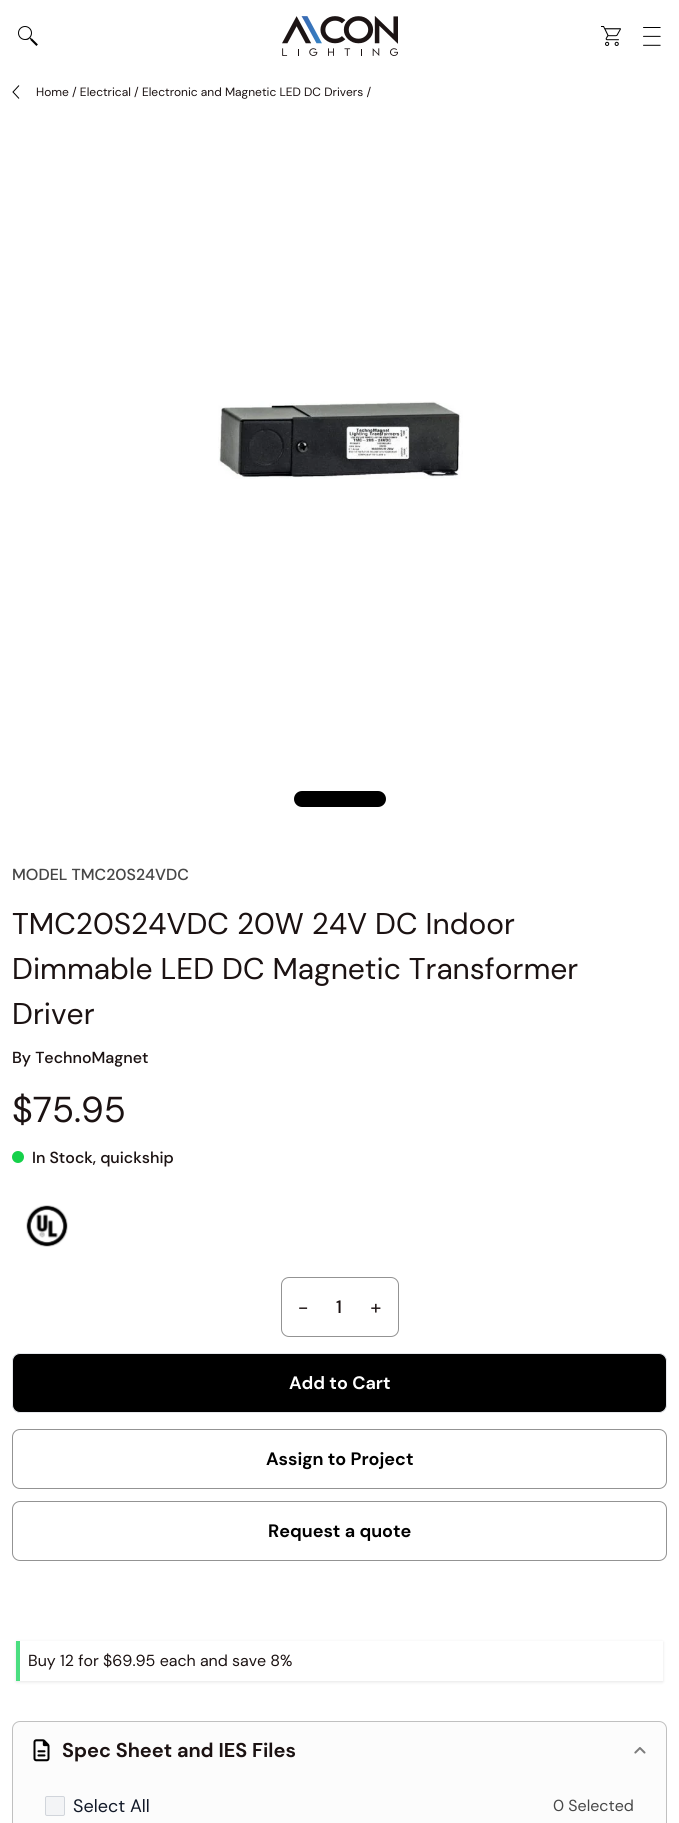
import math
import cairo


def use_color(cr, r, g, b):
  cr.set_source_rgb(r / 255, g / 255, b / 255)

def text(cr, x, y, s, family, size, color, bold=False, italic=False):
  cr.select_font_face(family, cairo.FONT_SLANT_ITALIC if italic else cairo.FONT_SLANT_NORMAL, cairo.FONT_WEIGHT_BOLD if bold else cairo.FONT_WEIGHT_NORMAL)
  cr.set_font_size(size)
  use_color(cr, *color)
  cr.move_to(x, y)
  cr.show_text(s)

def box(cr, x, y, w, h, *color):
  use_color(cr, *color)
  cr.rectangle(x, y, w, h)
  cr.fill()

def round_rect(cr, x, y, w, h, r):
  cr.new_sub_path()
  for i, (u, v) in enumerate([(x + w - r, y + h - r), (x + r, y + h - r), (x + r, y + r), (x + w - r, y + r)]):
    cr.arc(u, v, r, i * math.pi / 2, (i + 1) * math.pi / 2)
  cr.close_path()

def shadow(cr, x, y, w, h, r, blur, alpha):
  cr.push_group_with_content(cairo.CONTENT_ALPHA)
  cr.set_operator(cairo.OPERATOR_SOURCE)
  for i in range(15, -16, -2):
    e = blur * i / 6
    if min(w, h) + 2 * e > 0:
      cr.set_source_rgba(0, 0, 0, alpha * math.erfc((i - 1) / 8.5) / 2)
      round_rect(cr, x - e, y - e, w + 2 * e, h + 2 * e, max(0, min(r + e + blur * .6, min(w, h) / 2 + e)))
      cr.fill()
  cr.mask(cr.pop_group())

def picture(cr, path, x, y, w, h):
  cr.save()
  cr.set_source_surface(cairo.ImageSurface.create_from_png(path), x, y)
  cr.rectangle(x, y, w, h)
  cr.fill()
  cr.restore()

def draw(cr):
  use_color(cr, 255, 255, 255)
  cr.paint()
  picture(cr, "img_01.png", 282, 16, 116, 40)
  picture(cr, "img_02.png", 18, 26, 20, 20)
  picture(cr, "img_03.png", 601, 26, 20, 20)
  picture(cr, "img_04.png", 643, 27, 18, 19)
  cr.new_path()
  cr.move_to(19, 85.5)
  cr.line_to(13, 92)
  cr.line_to(19, 98.5)
  use_color(cr, 0, 0, 0)
  cr.set_line_width(1)
  cr.stroke()
  picture(cr, "img_05.png", 218, 401, 245, 78)
  round_rect(cr, 294, 791, 92, 16, 8)
  cr.fill()
  use_color(cr, 21, 209, 74)
  cr.arc(18, 1157, 6, 0, 2 * math.pi)
  cr.fill()
  picture(cr, "img_06.png", 26, 1205, 42, 42)
  round_rect(cr, 281.5, 1277.5, 117, 59, 7.5)
  use_color(cr, 147, 147, 147)
  cr.stroke()
  use_color(cr, 0, 0, 0)
  round_rect(cr, 12.5, 1353.5, 654, 59, 7.5)
  cr.fill_preserve()
  use_color(cr, 229, 231, 235)
  cr.stroke()
  round_rect(cr, 12.5, 1429.5, 654, 59, 7.5)
  use_color(cr, 147, 147, 147)
  cr.stroke()
  round_rect(cr, 12.5, 1501.5, 654, 59, 7.5)
  cr.stroke()
  cr.save()
  cr.set_fill_rule(cairo.FILL_RULE_EVEN_ODD)
  cr.new_path()
  cr.move_to(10, 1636)
  cr.line_to(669, 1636)
  cr.line_to(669, 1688)
  cr.line_to(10, 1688)
  cr.close_path()
  cr.move_to(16, 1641)
  cr.line_to(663, 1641)
  cr.line_to(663, 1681)
  cr.line_to(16, 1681)
  cr.close_path()
  cr.clip()
  use_color(cr, 0, 0, 0)
  shadow(cr, 16, 1642, 647, 40, 0, 1.5, 0.1)
  cr.restore()
  box(cr, 16, 1641, 4, 40, 74, 222, 128)
  use_color(cr, 252, 252, 252)
  round_rect(cr, 12.5, 1721.5, 654, 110, 7.5)
  cr.fill_preserve()
  use_color(cr, 192, 192, 192)
  cr.stroke()
  picture(cr, "img_07.png", 33, 1739, 17, 23)
  picture(cr, "img_08.png", 634, 1747, 12, 7)
  use_color(cr, 243, 244, 246)
  round_rect(cr, 45.5, 1796.5, 19, 19, 1.5)
  cr.fill_preserve()
  use_color(cr, 209, 213, 219)
  cr.stroke()
  text(cr, 36, 96, "Home / Electrical / Electronic and Magnetic LED DC Drivers /", "DM Sans", 12, (27, 18, 18))
  text(cr, 12, 880, "MODEL TMC20S24VDC", "DM Sans Medium", 16, (71, 71, 71))
  text(cr, 12, 934, "TMC20S24VDC 20W 24V DC Indoor", "DM Sans", 30, (27, 18, 18))
  text(cr, 12, 979, "Dimmable LED DC Magnetic Transformer", "DM Sans", 30, (27, 18, 18))
  text(cr, 12, 1024, "Driver", "DM Sans", 30, (27, 18, 18))
  text(cr, 12, 1063, "By TechnoMagnet", "DM Sans Medium", 16, (27, 18, 18))
  text(cr, 12, 1122, "$75.95", "DM Sans", 36, (27, 18, 18))
  text(cr, 32, 1163, "In Stock, quickship", "DM Sans Medium", 16, (27, 18, 18))
  text(cr, 298, 1314, "-", "DM Sans", 20, (27, 18, 18))
  text(cr, 336, 1313, "1", "DM Sans Medium", 18, (27, 18, 18))
  text(cr, 370, 1314, "+", "DM Sans", 20, (27, 18, 18))
  text(cr, 289, 1389, "Add to Cart", "DM Sans", 18, (255, 255, 255), bold=True)
  text(cr, 266, 1465, "Assign to Project", "DM Sans", 18, (0, 0, 0), bold=True)
  text(cr, 268, 1537, "Request a quote", "DM Sans", 18, (0, 0, 0), bold=True)
  text(cr, 28, 1666, "Buy 12 for $69.95 each and save 8%", "DM Sans", 16, (27, 18, 18))
  text(cr, 62, 1757, "Spec Sheet and IES Files", "DM Sans", 20, (27, 18, 18), bold=True)
  text(cr, 73, 1812, "Select All", "DM Sans", 18, (17, 24, 39))
  text(cr, 553, 1811, "0 Selected", "DM Sans", 16, (71, 71, 71))


surface = cairo.ImageSurface(cairo.FORMAT_RGB24, 679, 1823)
cr = cairo.Context(surface)
options = cairo.FontOptions()
options.set_hint_metrics(cairo.HINT_METRICS_OFF)
options.set_hint_style(cairo.HINT_STYLE_NONE)
cr.set_font_options(options)
cr.set_miter_limit(4)
draw(cr)
surface.write_to_png("out.png")
